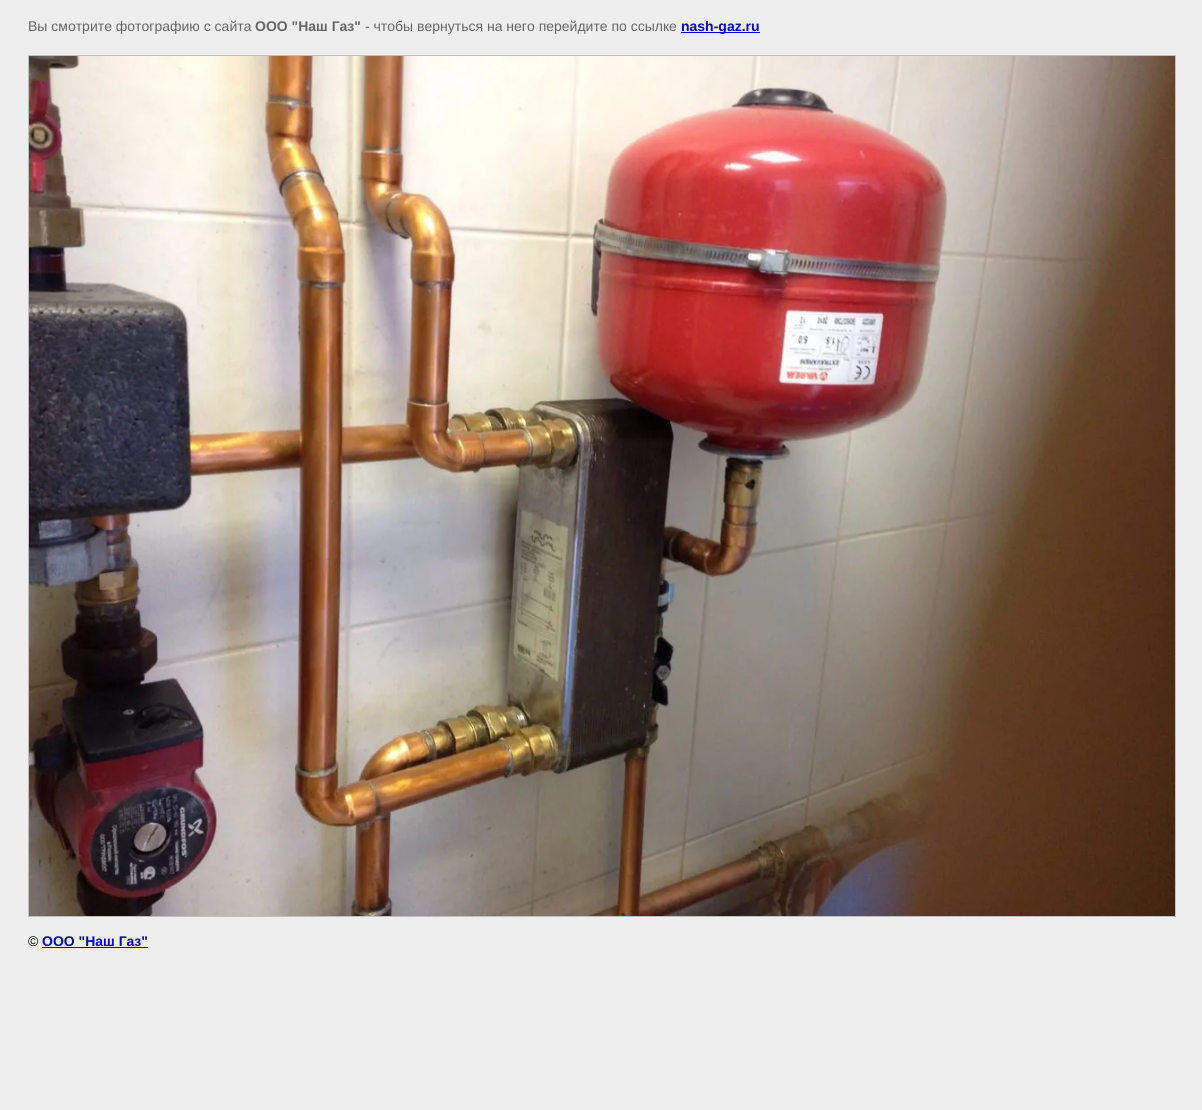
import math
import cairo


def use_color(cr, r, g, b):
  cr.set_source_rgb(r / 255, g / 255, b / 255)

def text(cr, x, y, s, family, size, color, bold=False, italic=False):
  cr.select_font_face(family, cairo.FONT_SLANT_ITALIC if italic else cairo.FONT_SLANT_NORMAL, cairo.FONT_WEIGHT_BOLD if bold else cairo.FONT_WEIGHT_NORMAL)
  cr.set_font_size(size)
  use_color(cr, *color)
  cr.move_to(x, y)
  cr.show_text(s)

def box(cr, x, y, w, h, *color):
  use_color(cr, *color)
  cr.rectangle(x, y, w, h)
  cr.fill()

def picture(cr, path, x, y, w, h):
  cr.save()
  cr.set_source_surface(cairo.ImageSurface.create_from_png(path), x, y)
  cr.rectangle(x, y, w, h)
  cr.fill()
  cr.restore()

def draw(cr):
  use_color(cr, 238, 238, 238)
  cr.paint()
  box(cr, 681, 32, 79, 1, 0, 0, 204)
  cr.rectangle(28.5, 55.5, 1147, 861)
  use_color(cr, 192, 192, 192)
  cr.set_line_width(1)
  cr.stroke()
  picture(cr, "img_01.png", 29, 56, 1146, 860)
  box(cr, 42, 947, 106, 1, 0, 0, 204)
  text(cr, 28, 31, "Вы смотрите фотографию с сайта", "Liberation Sans", 14, (102, 102, 102))
  text(cr, 255, 31, "ООО \"Наш Газ\"", "Liberation Sans", 14, (102, 102, 102), bold=True)
  text(cr, 365, 31, "- чтобы вернуться на него перейдите по ссылке", "Liberation Sans", 14, (102, 102, 102))
  text(cr, 681, 31, "nash-gaz.ru", "Liberation Sans", 14, (0, 0, 204), bold=True)
  text(cr, 28, 946, "©", "Liberation Sans", 14, (0, 0, 0))
  text(cr, 42, 946, "ООО \"Наш Газ\"", "Liberation Sans", 14, (0, 0, 204), bold=True)


surface = cairo.ImageSurface(cairo.FORMAT_RGB24, 1202, 1110)
cr = cairo.Context(surface)
options = cairo.FontOptions()
options.set_hint_metrics(cairo.HINT_METRICS_OFF)
options.set_hint_style(cairo.HINT_STYLE_NONE)
cr.set_font_options(options)
cr.set_miter_limit(4)
draw(cr)
surface.write_to_png("out.png")
